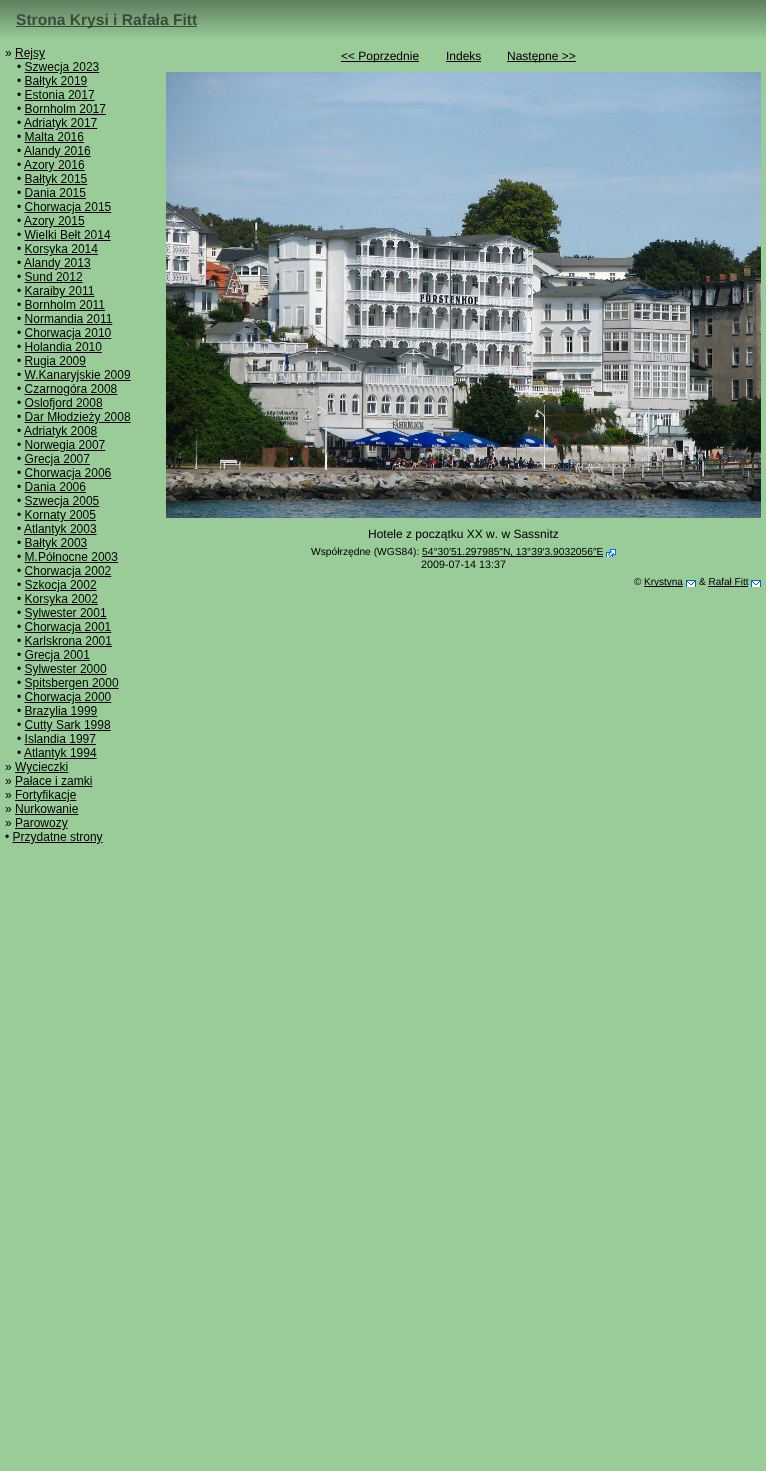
import math
import cairo


def use_color(cr, r, g, b):
  cr.set_source_rgb(r / 255, g / 255, b / 255)

def text(cr, x, y, s, family, size, color, bold=False, italic=False):
  cr.select_font_face(family, cairo.FONT_SLANT_ITALIC if italic else cairo.FONT_SLANT_NORMAL, cairo.FONT_WEIGHT_BOLD if bold else cairo.FONT_WEIGHT_NORMAL)
  cr.set_font_size(size)
  use_color(cr, *color)
  cr.move_to(x, y)
  cr.show_text(s)

def box(cr, x, y, w, h, *color):
  use_color(cr, *color)
  cr.rectangle(x, y, w, h)
  cr.fill()

def picture(cr, path, x, y, w, h):
  cr.save()
  cr.set_source_surface(cairo.ImageSurface.create_from_png(path), x, y)
  cr.rectangle(x, y, w, h)
  cr.fill()
  cr.restore()

def draw(cr):
  use_color(cr, 153, 204, 153)
  cr.paint()
  picture(cr, "img_01.png", 0, 0, 766, 38)
  box(cr, 16, 26, 181, 1, 57, 76, 57)
  picture(cr, "img_02.png", 5, 48, 126, 796)
  box(cr, 341, 61, 78, 1, 0, 0, 0)
  box(cr, 446, 61, 35, 1, 0, 0, 0)
  box(cr, 507, 61, 69, 1, 0, 0, 0)
  picture(cr, "img_03.png", 166, 72, 595, 446)
  box(cr, 422, 556, 181, 1, 0, 0, 0)
  picture(cr, "img_04.png", 606, 549, 10, 8)
  box(cr, 644, 586, 39, 1, 0, 0, 0)
  picture(cr, "img_05.png", 686, 580, 10, 7)
  picture(cr, "img_05.png", 751, 580, 10, 7)
  box(cr, 708, 586, 40, 1, 0, 0, 0)
  text(cr, 16, 25, "Strona Krysi i Rafała Fitt", "Liberation Sans", 15.6, (57, 76, 57), bold=True)
  text(cr, 341, 60, "<< Poprzednie", "Liberation Sans", 12, (0, 0, 0))
  text(cr, 446, 60, "Indeks", "Liberation Sans", 12, (0, 0, 0))
  text(cr, 507, 60, "Następne >>", "Liberation Sans", 12, (0, 0, 0))
  text(cr, 368, 538, "Hotele z początku XX w. w Sassnitz", "Liberation Sans", 12, (0, 0, 0))
  text(cr, 311, 555, "Współrzędne (WGS84): 54°30′51.297985″N", "Liberation Sans", 10.25, (0, 0, 0))
  text(cr, 510, 555, ", 13°39′3.9032056″E", "Liberation Sans", 10.25, (0, 0, 0))
  text(cr, 421, 568, "2009-07-14 13:37", "Liberation Sans", 10.75, (0, 0, 0))
  text(cr, 634, 585, "©", "Liberation Sans", 10, (0, 0, 0))
  text(cr, 644, 585, "Krystyna", "Liberation Sans", 10, (0, 0, 0))
  text(cr, 699, 585, "& Rafał Fitt", "Liberation Sans", 10, (0, 0, 0))


surface = cairo.ImageSurface(cairo.FORMAT_RGB24, 766, 1471)
cr = cairo.Context(surface)
options = cairo.FontOptions()
options.set_hint_metrics(cairo.HINT_METRICS_OFF)
options.set_hint_style(cairo.HINT_STYLE_NONE)
cr.set_font_options(options)
cr.set_miter_limit(4)
draw(cr)
surface.write_to_png("out.png")
